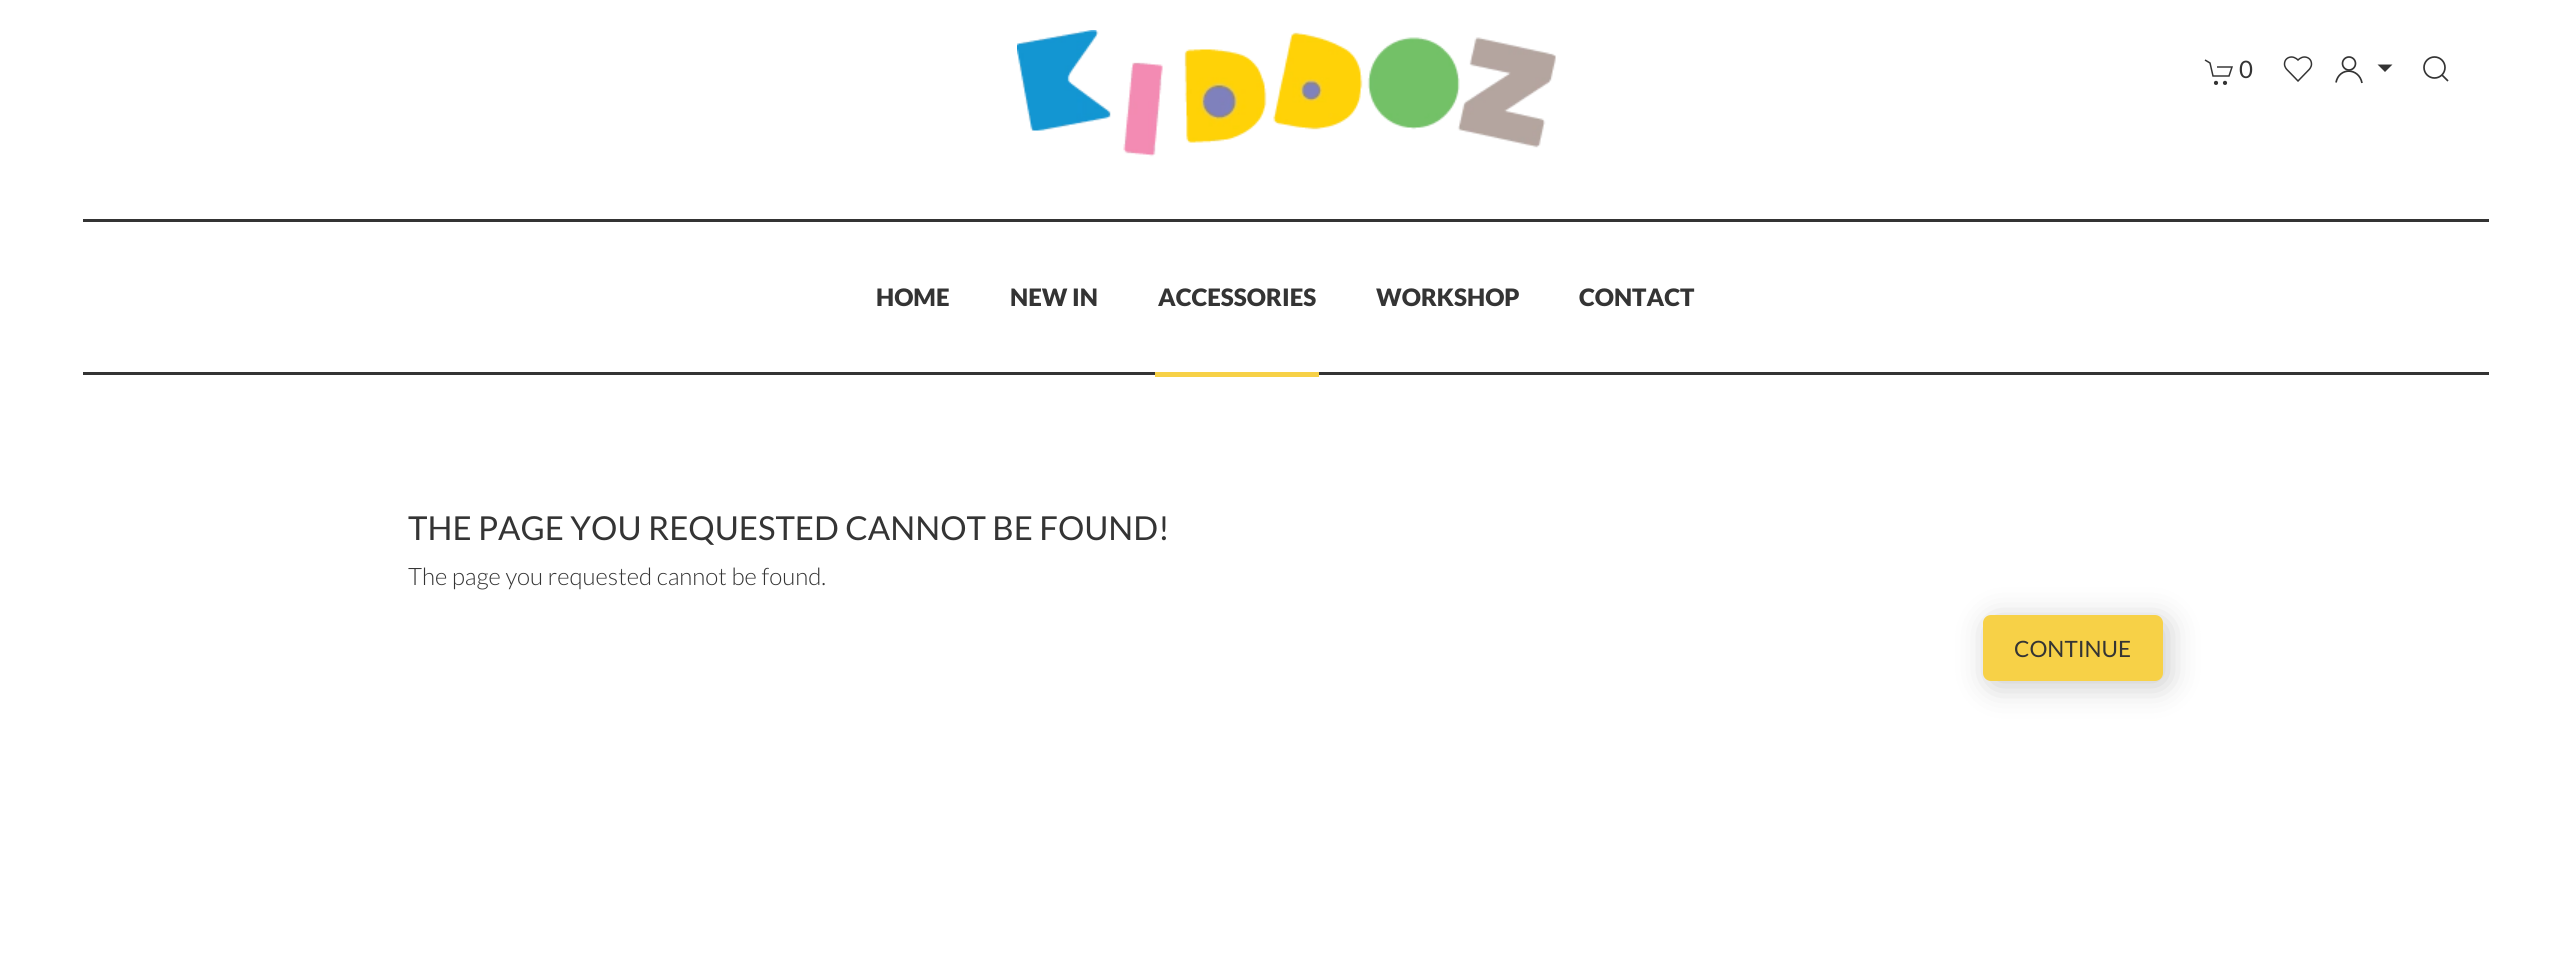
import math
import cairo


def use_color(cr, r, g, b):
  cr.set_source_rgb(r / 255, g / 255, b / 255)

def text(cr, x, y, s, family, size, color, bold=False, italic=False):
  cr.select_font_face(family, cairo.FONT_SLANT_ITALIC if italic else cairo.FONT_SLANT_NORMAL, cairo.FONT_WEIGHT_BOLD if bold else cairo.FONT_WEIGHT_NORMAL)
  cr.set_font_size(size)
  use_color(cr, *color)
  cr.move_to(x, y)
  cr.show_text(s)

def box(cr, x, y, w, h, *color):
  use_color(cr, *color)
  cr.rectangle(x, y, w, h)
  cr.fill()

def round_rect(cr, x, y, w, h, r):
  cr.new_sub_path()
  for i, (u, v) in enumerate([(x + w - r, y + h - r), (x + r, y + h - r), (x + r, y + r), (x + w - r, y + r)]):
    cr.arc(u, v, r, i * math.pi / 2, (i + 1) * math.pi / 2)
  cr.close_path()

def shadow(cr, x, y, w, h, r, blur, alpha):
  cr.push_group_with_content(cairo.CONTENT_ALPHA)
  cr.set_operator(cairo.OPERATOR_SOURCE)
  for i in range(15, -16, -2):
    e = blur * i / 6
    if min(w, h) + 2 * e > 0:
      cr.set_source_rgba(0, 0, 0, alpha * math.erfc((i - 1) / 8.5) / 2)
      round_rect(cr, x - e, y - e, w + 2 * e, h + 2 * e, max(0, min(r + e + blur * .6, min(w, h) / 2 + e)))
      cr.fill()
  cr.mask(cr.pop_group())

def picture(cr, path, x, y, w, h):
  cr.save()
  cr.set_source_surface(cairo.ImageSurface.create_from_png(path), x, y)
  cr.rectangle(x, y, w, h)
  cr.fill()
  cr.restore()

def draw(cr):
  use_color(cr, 255, 255, 255)
  cr.paint()
  picture(cr, "img_01.png", 1017, 30, 539, 127)
  cr.new_path()
  cr.move_to(2205, 60)
  cr.line_to(2210, 63)
  cr.line_to(2213, 76)
  cr.line_to(2229, 76)
  cr.line_to(2232, 67)
  cr.line_to(2217, 67)
  use_color(cr, 52, 52, 52)
  cr.set_line_width(1.5)
  cr.stroke()
  cr.arc(2216, 82.9, 2.1, 0, 2 * math.pi)
  cr.fill()
  cr.arc(2225, 82.9, 2.1, 0, 2 * math.pi)
  cr.fill()
  picture(cr, "img_02.png", 2283, 56, 30, 26)
  cr.arc(2349, 63.5, 6.5, 0, 2 * math.pi)
  cr.set_line_width(1.7)
  cr.stroke()
  cr.new_path()
  cr.move_to(2336, 82.5)
  cr.curve_to(2339, 67, 2359, 67.5, 2362, 83)
  cr.stroke()
  cr.new_path()
  cr.move_to(2377.5, 64.5)
  cr.line_to(2392.5, 64.5)
  cr.line_to(2385, 72)
  cr.close_path()
  cr.fill()
  cr.arc(2434.5, 67.5, 10.5, 0, 2 * math.pi)
  cr.stroke()
  cr.new_path()
  cr.move_to(2442, 75)
  cr.line_to(2448, 81)
  cr.close_path()
  cr.stroke()
  box(cr, 83, 219, 2406, 3, 52, 52, 52)
  box(cr, 83, 372, 2406, 3, 52, 52, 52)
  box(cr, 1155, 372, 164, 5, 247, 209, 71)
  use_color(cr, 201, 201, 201)
  shadow(cr, 1988, 620, 180, 66, 8, 15, 1)
  use_color(cr, 247, 209, 71)
  round_rect(cr, 1983, 615, 180, 66, 8)
  cr.fill()
  text(cr, 2239, 78, "0", "Lato", 24, (52, 52, 52))
  text(cr, 876, 306, "HOME", "Lato Black", 24, (52, 52, 52))
  text(cr, 1010, 306, "NEW IN", "Lato Black", 24, (52, 52, 52))
  text(cr, 1158, 306, "ACCESSORIES", "Lato Black", 24, (52, 52, 52))
  text(cr, 1376, 306, "WORKSHOP", "Lato Black", 24, (52, 52, 52))
  text(cr, 1579, 306, "CONTACT", "Lato Black", 24, (52, 52, 52))
  text(cr, 408, 540, "THE PAGE YOU REQUESTED CANNOT BE FOUND!", "Lato", 33, (52, 52, 52))
  text(cr, 408, 585, "The page you requested cannot be found.", "Lato Light", 24, (52, 52, 52))
  text(cr, 2014, 657, "CONTINUE", "Lato", 22.5, (52, 52, 52))


surface = cairo.ImageSurface(cairo.FORMAT_RGB24, 2570, 966)
cr = cairo.Context(surface)
options = cairo.FontOptions()
options.set_hint_metrics(cairo.HINT_METRICS_OFF)
options.set_hint_style(cairo.HINT_STYLE_NONE)
cr.set_font_options(options)
cr.set_miter_limit(4)
draw(cr)
surface.write_to_png("out.png")
